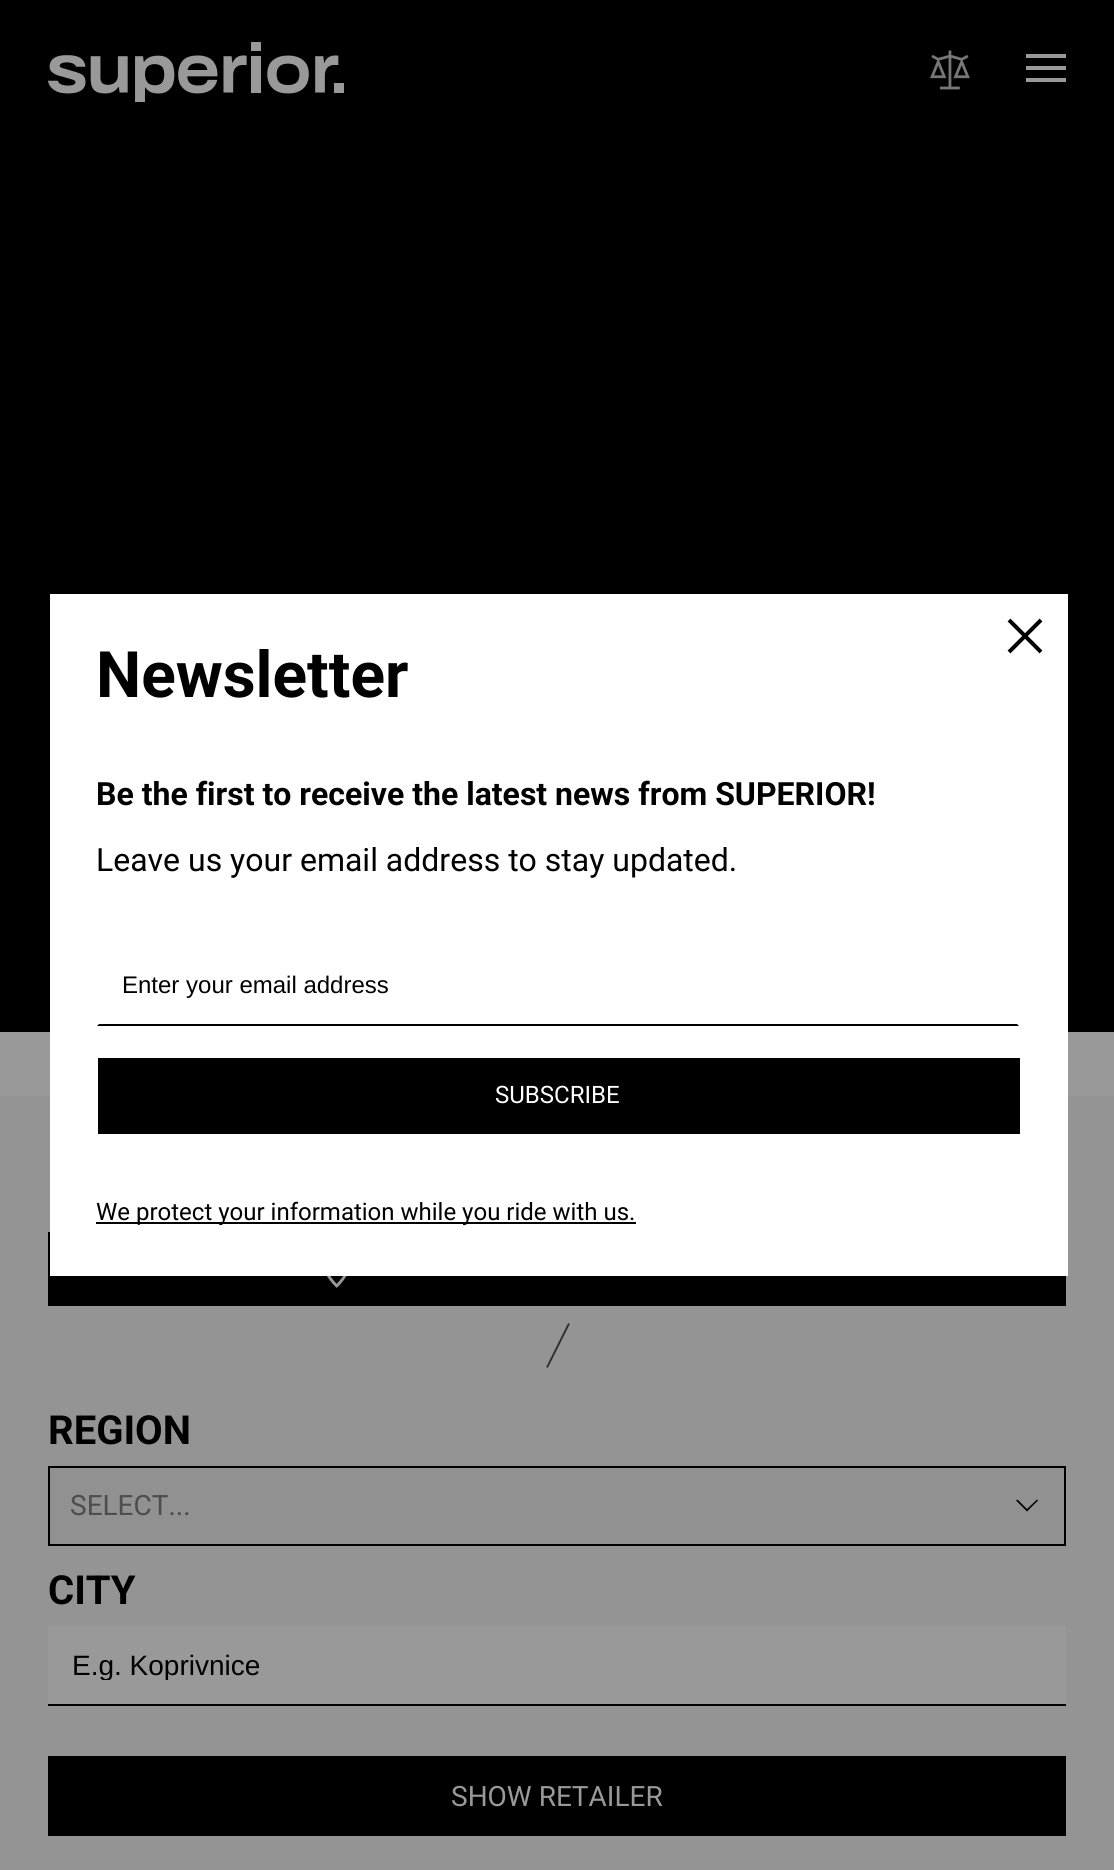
import math
import cairo


def use_color(cr, r, g, b):
  cr.set_source_rgb(r / 255, g / 255, b / 255)

def text(cr, x, y, s, family, size, color, bold=False, italic=False):
  cr.select_font_face(family, cairo.FONT_SLANT_ITALIC if italic else cairo.FONT_SLANT_NORMAL, cairo.FONT_WEIGHT_BOLD if bold else cairo.FONT_WEIGHT_NORMAL)
  cr.set_font_size(size)
  use_color(cr, *color)
  cr.move_to(x, y)
  cr.show_text(s)

def box(cr, x, y, w, h, *color):
  use_color(cr, *color)
  cr.rectangle(x, y, w, h)
  cr.fill()

def picture(cr, path, x, y, w, h):
  cr.save()
  cr.set_source_surface(cairo.ImageSurface.create_from_png(path), x, y)
  cr.rectangle(x, y, w, h)
  cr.fill()
  cr.restore()

def draw(cr):
  use_color(cr, 153, 153, 153)
  cr.paint()
  box(cr, 0, 0, 1114, 1032, 0, 0, 0)
  box(cr, 0, 1096, 1114, 774, 148, 148, 148)
  box(cr, 48, 1232, 1018, 74, 0, 0, 0)
  box(cr, 50, 594, 1018, 682, 255, 255, 255)
  cr.new_path()
  cr.move_to(1009, 652)
  cr.line_to(1041, 620)
  cr.move_to(1041, 652)
  cr.line_to(1009, 620)
  use_color(cr, 0, 0, 0)
  cr.set_line_width(4)
  cr.stroke()
  cr.new_path()
  cr.move_to(1019, 1026)
  cr.line_to(97, 1026)
  cr.line_to(99, 1024)
  cr.line_to(1017, 1024)
  cr.close_path()
  cr.fill()
  box(cr, 98, 1058, 922, 76, 0, 0, 0)
  box(cr, 96, 1222, 540, 2, 0, 0, 0)
  picture(cr, "img_01.png", 48, 42, 296, 60)
  picture(cr, "img_02.png", 930, 50, 40, 40)
  box(cr, 1026, 54, 40, 4, 153, 153, 153)
  box(cr, 1026, 66, 40, 4, 153, 153, 153)
  box(cr, 1026, 78, 40, 4, 153, 153, 153)
  picture(cr, "img_03.png", 327, 1276, 20, 12)
  cr.new_path()
  cr.move_to(547, 1367.5)
  cr.line_to(569, 1323.5)
  use_color(cr, 51, 51, 51)
  cr.set_line_width(2)
  cr.stroke()
  use_color(cr, 145, 145, 145)
  cr.rectangle(49, 1467, 1016, 78)
  cr.fill_preserve()
  use_color(cr, 0, 0, 0)
  cr.stroke()
  cr.set_fill_rule(cairo.FILL_RULE_EVEN_ODD)
  cr.new_path()
  cr.move_to(1016, 1500.5)
  cr.line_to(1027, 1511.5)
  cr.line_to(1038, 1500.5)
  cr.line_to(1037, 1499.5)
  cr.line_to(1027, 1509)
  cr.line_to(1017.5, 1499.5)
  cr.close_path()
  cr.fill()
  box(cr, 48, 1626, 1018, 78, 153, 153, 153)
  box(cr, 48, 1704, 1018, 2, 0, 0, 0)
  box(cr, 48, 1756, 1018, 80, 0, 0, 0)
  text(cr, 96, 697, "Newsletter", "Roboto", 64, (0, 0, 0), bold=True)
  text(cr, 96, 805, "Be the first to receive the latest news from SUPERIOR!", "Roboto", 32, (0, 0, 0), bold=True)
  text(cr, 96, 871, "Leave us your email address to stay updated.", "Roboto", 32, (0, 0, 0))
  text(cr, 122, 993, "Enter your email address", "Liberation Sans", 24, (0, 0, 0))
  text(cr, 495, 1103, "SUBSCRIBE", "Roboto", 24, (255, 255, 255))
  text(cr, 96, 1220, "We protect your information while you ride with us.", "Roboto", 24, (0, 0, 0))
  text(cr, 48, 1444, "REGION", "Roboto", 40, (0, 0, 0), bold=True)
  text(cr, 70, 1515, "SELECT...", "Roboto", 28, (77, 77, 77))
  text(cr, 48, 1604, "CITY", "Roboto", 40, (0, 0, 0), bold=True)
  cr.save()
  cr.set_fill_rule(cairo.FILL_RULE_WINDING)
  cr.rectangle(72, 1648, 970, 32)
  cr.clip()
  text(cr, 72, 1675, "E.g. Koprivnice", "Liberation Sans", 28, (0, 0, 0))
  cr.restore()
  text(cr, 451, 1806, "SHOW RETAILER", "Roboto", 28, (153, 153, 153))


surface = cairo.ImageSurface(cairo.FORMAT_RGB24, 1114, 1870)
cr = cairo.Context(surface)
options = cairo.FontOptions()
options.set_hint_metrics(cairo.HINT_METRICS_OFF)
options.set_hint_style(cairo.HINT_STYLE_NONE)
cr.set_font_options(options)
cr.set_miter_limit(4)
draw(cr)
surface.write_to_png("out.png")
